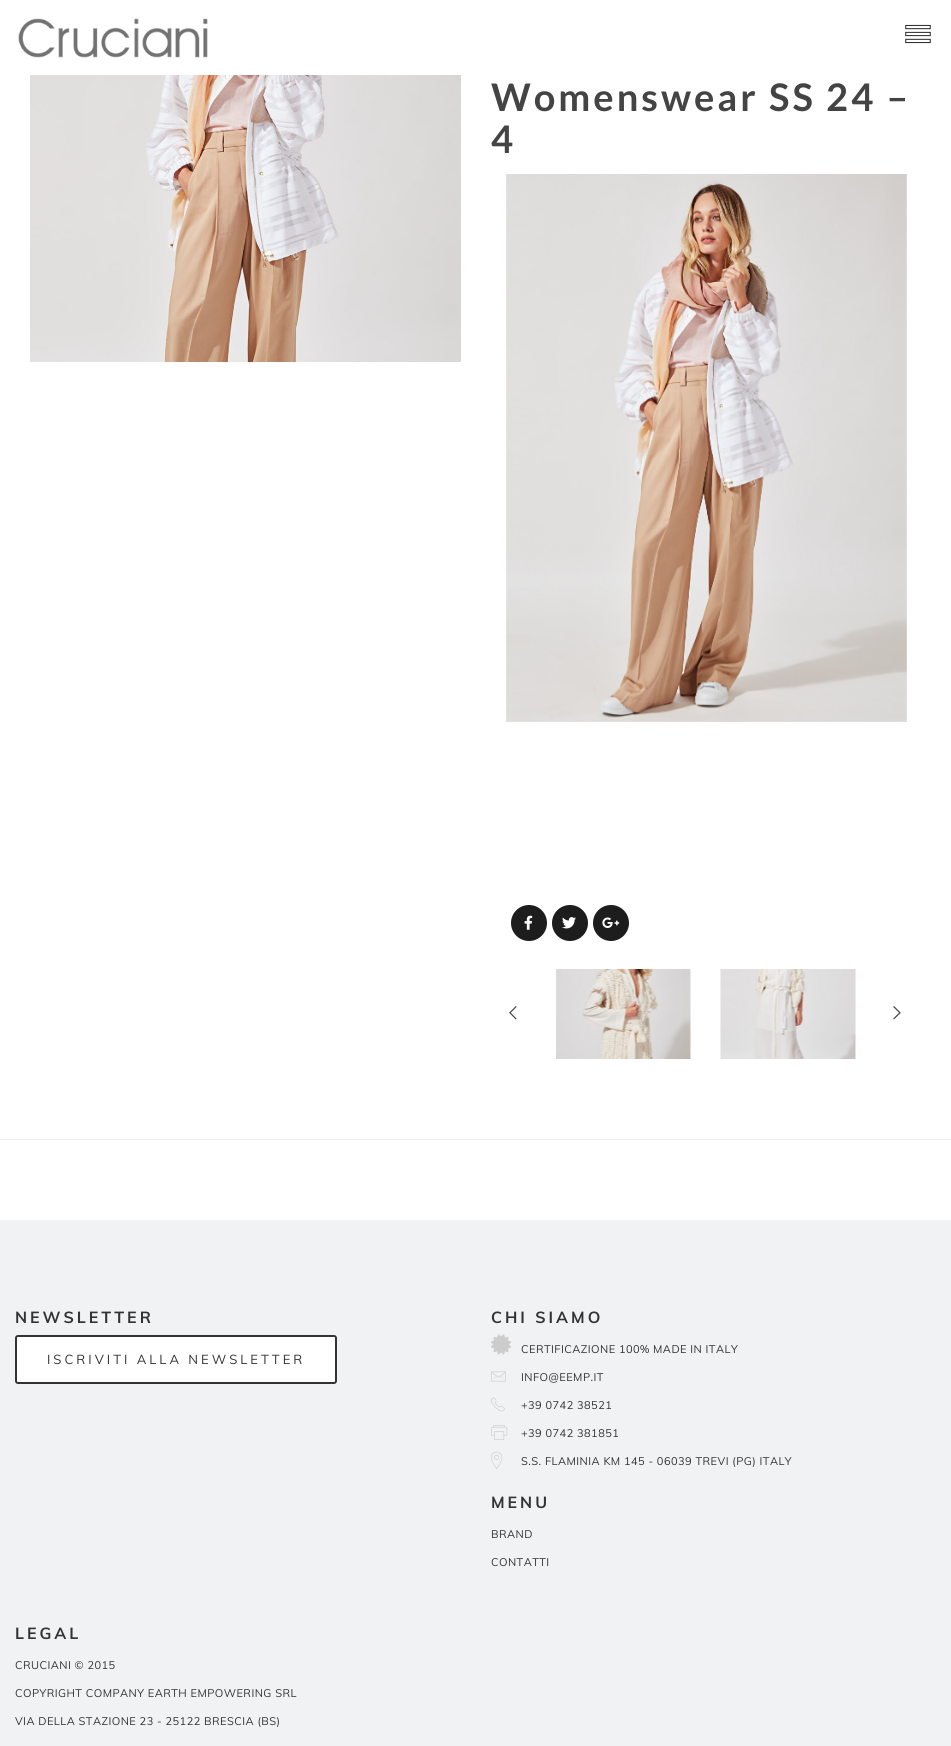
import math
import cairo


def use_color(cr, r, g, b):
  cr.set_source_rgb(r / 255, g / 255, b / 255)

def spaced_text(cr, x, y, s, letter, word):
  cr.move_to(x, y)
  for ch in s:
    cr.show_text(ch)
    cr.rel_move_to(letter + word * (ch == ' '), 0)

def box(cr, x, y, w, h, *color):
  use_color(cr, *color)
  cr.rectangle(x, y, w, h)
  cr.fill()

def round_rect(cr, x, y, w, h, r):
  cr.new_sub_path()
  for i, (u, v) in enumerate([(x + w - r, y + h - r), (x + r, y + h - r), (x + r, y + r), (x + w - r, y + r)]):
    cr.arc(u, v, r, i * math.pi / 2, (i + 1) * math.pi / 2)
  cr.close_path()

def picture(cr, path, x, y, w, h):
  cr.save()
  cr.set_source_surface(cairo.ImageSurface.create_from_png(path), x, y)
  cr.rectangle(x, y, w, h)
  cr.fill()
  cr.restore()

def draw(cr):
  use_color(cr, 255, 255, 255)
  cr.paint()
  picture(cr, "img_01.png", 18, 18, 190, 40)
  picture(cr, "img_02.png", 905, 24, 26, 20)
  picture(cr, "img_03.png", 30, 75, 431, 287)
  picture(cr, "img_04.png", 506, 174, 401, 548)
  use_color(cr, 29, 29, 29)
  cr.arc(529, 923, 18, 0, 2 * math.pi)
  cr.fill()
  picture(cr, "img_05.png", 524, 915, 9, 15)
  cr.arc(570, 923, 18, 0, 2 * math.pi)
  cr.fill()
  picture(cr, "img_06.png", 562, 917, 14, 12)
  cr.arc(611, 923, 18, 0, 2 * math.pi)
  cr.fill()
  picture(cr, "img_07.png", 602, 917, 18, 11)
  picture(cr, "img_08.png", 556, 969, 135, 90)
  picture(cr, "img_09.png", 720, 969, 136, 90)
  picture(cr, "img_10.png", 509, 1006, 8, 14)
  picture(cr, "img_11.png", 893, 1006, 8, 14)
  box(cr, 0, 1139, 951, 1, 238, 238, 238)
  box(cr, 0, 1220, 951, 526, 241, 242, 243)
  use_color(cr, 255, 255, 255)
  round_rect(cr, 16, 1336, 320, 47, 2)
  cr.fill_preserve()
  use_color(cr, 51, 51, 51)
  cr.stroke()
  picture(cr, "img_12.png", 491, 1334, 20, 21)
  picture(cr, "img_13.png", 491, 1371, 15, 11)
  picture(cr, "img_14.png", 491, 1397, 14, 15)
  picture(cr, "img_15.png", 491, 1425, 17, 15)
  picture(cr, "img_16.png", 491, 1451, 12, 18)
  cr.select_font_face("Lato", cairo.FONT_SLANT_NORMAL, cairo.FONT_WEIGHT_BOLD)
  cr.set_font_size(38)
  use_color(cr, 68, 68, 68)
  spaced_text(cr, 491, 111, "Womenswear SS 24 –", 3, 0)
  spaced_text(cr, 491, 153, "4", 3, 0)
  cr.select_font_face("Muli", cairo.FONT_SLANT_NORMAL, cairo.FONT_WEIGHT_BOLD)
  cr.set_font_size(16)
  use_color(cr, 51, 51, 51)
  spaced_text(cr, 15, 1323, "NEWSLETTER", 3, 0)
  cr.select_font_face("Muli")
  cr.set_font_size(13)
  spaced_text(cr, 47, 1364, "ISCRIVITI ALLA NEWSLETTER", 3, 0)
  cr.select_font_face("Muli", cairo.FONT_SLANT_NORMAL, cairo.FONT_WEIGHT_BOLD)
  cr.set_font_size(16)
  spaced_text(cr, 491, 1323, "CHI SIAMO", 3, 0)
  cr.select_font_face("Muli")
  cr.set_font_size(11)
  spaced_text(cr, 521, 1353, "CERTIFICAZIONE 100% MADE IN ITALY", 0.45, 0)
  spaced_text(cr, 521, 1381, "INFO@EEMP.IT", 0.45, 0)
  spaced_text(cr, 521, 1409, "+39 0742 38521", 0.45, 0)
  spaced_text(cr, 521, 1437, "+39 0742 381851", 0.45, 0)
  spaced_text(cr, 521, 1465, "S.S. FLAMINIA KM 145 - 06039 TREVI (PG) ITALY", 0.45, 0)
  cr.select_font_face("Muli", cairo.FONT_SLANT_NORMAL, cairo.FONT_WEIGHT_BOLD)
  cr.set_font_size(16)
  spaced_text(cr, 491, 1508, "MENU", 3, 0)
  cr.select_font_face("Muli")
  cr.set_font_size(11)
  spaced_text(cr, 491, 1538, "BRAND", 0.45, 0)
  spaced_text(cr, 491, 1566, "CONTATTI", 0.45, 0)
  cr.select_font_face("Muli", cairo.FONT_SLANT_NORMAL, cairo.FONT_WEIGHT_BOLD)
  cr.set_font_size(16)
  spaced_text(cr, 15, 1639, "LEGAL", 3, 0)
  cr.select_font_face("Muli")
  cr.set_font_size(11)
  spaced_text(cr, 15, 1669, "CRUCIANI © 2015", 0.45, 0)
  spaced_text(cr, 15, 1697, "COPYRIGHT COMPANY EARTH EMPOWERING SRL", 0.45, 0)
  spaced_text(cr, 15, 1725, "VIA DELLA STAZIONE 23 - 25122 BRESCIA (BS)", 0.45, 0)


surface = cairo.ImageSurface(cairo.FORMAT_RGB24, 951, 1746)
cr = cairo.Context(surface)
options = cairo.FontOptions()
options.set_hint_metrics(cairo.HINT_METRICS_OFF)
options.set_hint_style(cairo.HINT_STYLE_NONE)
cr.set_font_options(options)
cr.set_miter_limit(4)
draw(cr)
surface.write_to_png("out.png")
